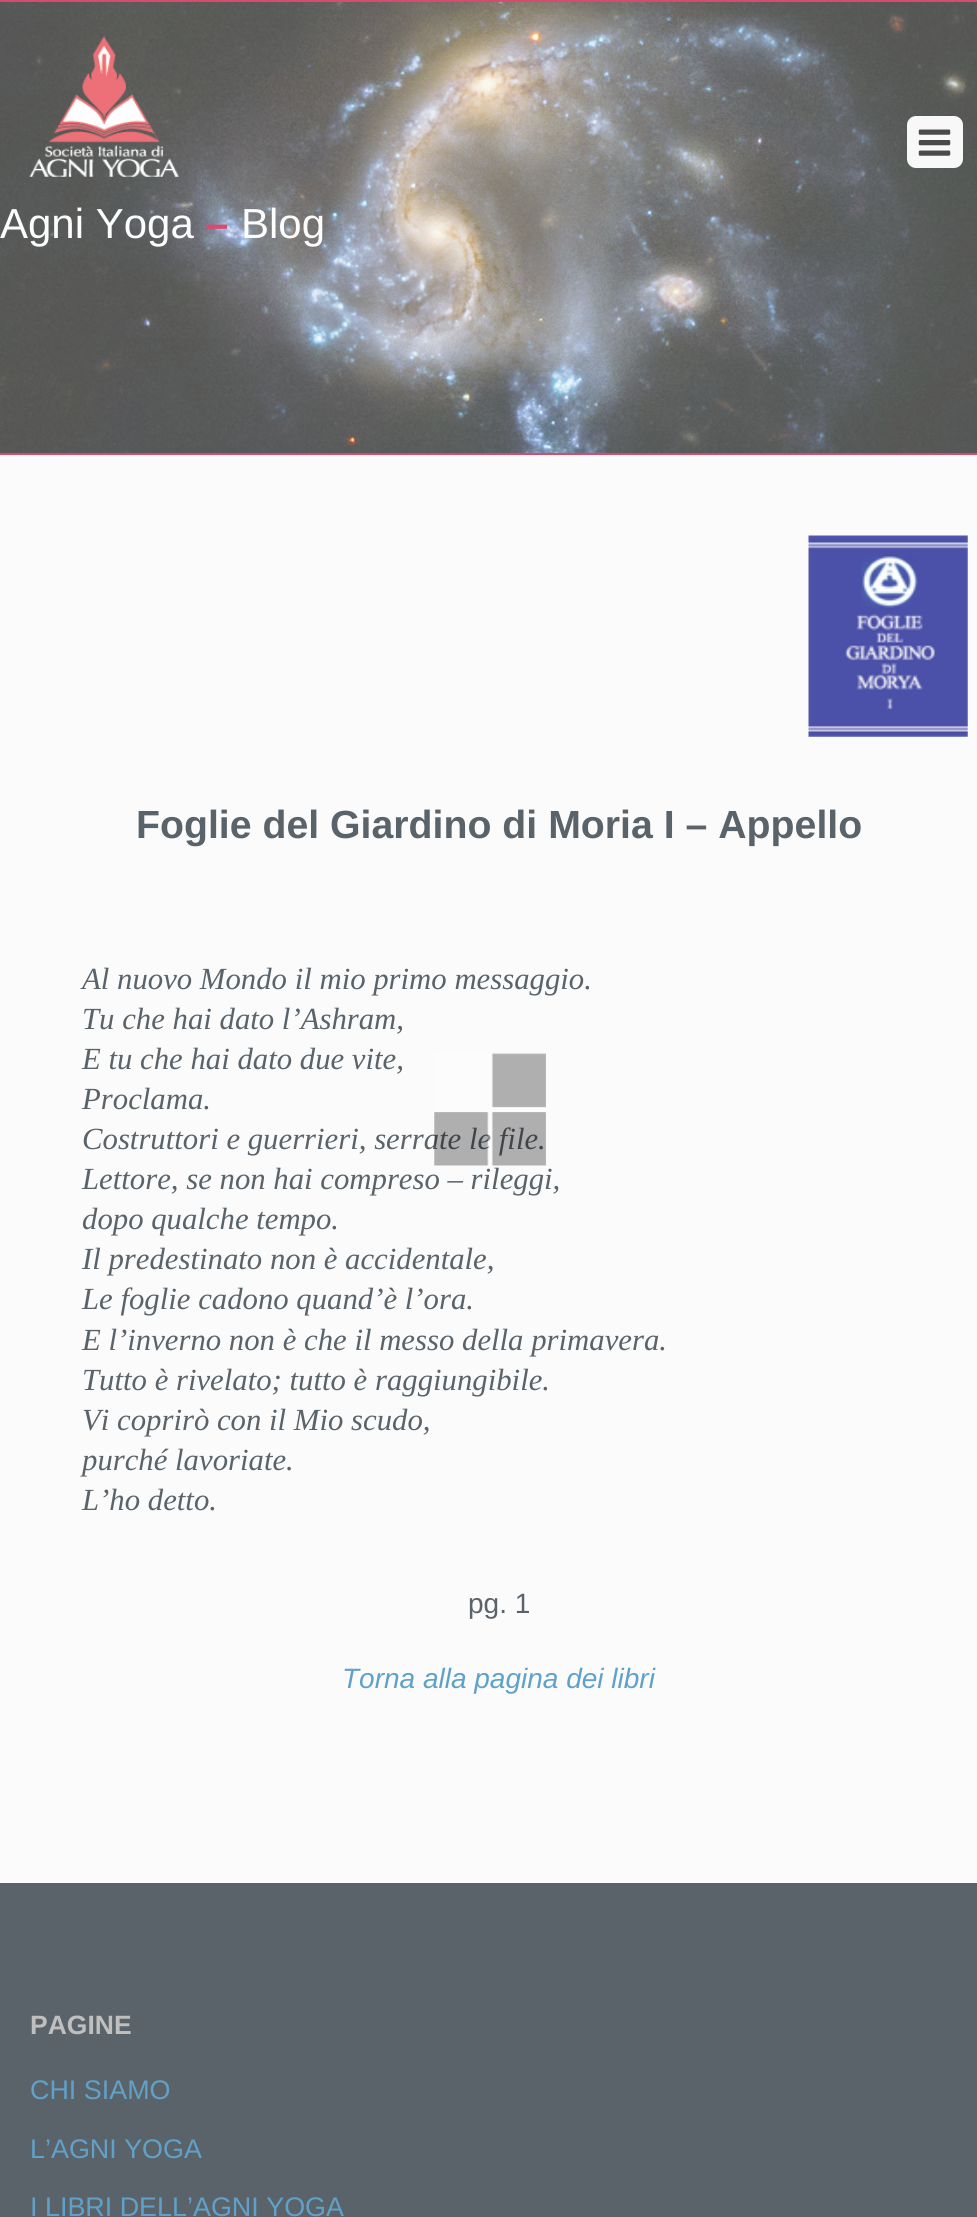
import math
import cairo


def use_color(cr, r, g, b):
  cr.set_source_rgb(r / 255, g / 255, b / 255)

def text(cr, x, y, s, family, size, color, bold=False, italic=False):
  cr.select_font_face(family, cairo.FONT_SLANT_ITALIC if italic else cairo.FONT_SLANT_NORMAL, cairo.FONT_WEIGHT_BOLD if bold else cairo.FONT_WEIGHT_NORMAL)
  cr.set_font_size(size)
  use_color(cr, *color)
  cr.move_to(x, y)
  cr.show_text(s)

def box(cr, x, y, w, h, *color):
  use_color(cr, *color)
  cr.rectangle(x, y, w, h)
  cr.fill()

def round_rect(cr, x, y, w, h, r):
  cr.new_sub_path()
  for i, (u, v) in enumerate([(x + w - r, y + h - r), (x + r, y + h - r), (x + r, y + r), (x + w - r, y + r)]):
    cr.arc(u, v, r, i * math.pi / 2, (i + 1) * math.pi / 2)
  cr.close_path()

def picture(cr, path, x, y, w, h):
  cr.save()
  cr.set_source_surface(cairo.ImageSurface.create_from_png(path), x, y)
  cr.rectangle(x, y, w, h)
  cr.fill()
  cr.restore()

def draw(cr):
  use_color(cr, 251, 251, 251)
  cr.paint()
  picture(cr, "img_01.png", 0, 2, 977, 451)
  box(cr, 0, 0, 977, 2, 217, 74, 110)
  box(cr, 0, 453, 977, 2, 217, 74, 110)
  picture(cr, "img_02.png", 29, 36, 150, 141)
  use_color(cr, 248, 248, 248)
  round_rect(cr, 907, 116, 56, 52, 9)
  cr.fill()
  picture(cr, "img_03.png", 918, 129, 33, 27)
  picture(cr, "img_04.png", 808, 535, 160, 202)
  box(cr, 0, 1883, 977, 334, 90, 99, 105)
  text(cr, 0, 238, "Agni Yoga", "Liberation Sans", 42, (253, 253, 253))
  text(cr, 205, 238, "–", "Liberation Sans", 42, (217, 74, 110), bold=True)
  text(cr, 241, 238, "Blog", "Liberation Sans", 42, (253, 253, 253))
  text(cr, 136, 838, "Foglie del Giardino di Moria I – Appello", "Liberation Sans", 39.25, (90, 99, 105), bold=True)
  text(cr, 82, 989, "Al nuovo Mondo il mio primo messaggio.", "Liberation Serif", 30.75, (90, 99, 105), italic=True)
  text(cr, 82, 1029, "Tu che hai dato l’Ashram,", "Liberation Serif", 30.75, (90, 99, 105), italic=True)
  text(cr, 82, 1069, "E tu che hai dato due vite,", "Liberation Serif", 30.75, (90, 99, 105), italic=True)
  text(cr, 82, 1109, "Proclama.", "Liberation Serif", 30.75, (90, 99, 105), italic=True)
  text(cr, 82, 1149, "Costruttori e guerrieri, serrate le file.", "Liberation Serif", 30.75, (90, 99, 105), italic=True)
  text(cr, 82, 1189, "Lettore, se non hai compreso – rileggi,", "Liberation Serif", 30.75, (90, 99, 105), italic=True)
  text(cr, 82, 1229, "dopo qualche tempo.", "Liberation Serif", 30.75, (90, 99, 105), italic=True)
  text(cr, 82, 1269, "Il predestinato non è accidentale,", "Liberation Serif", 30.75, (90, 99, 105), italic=True)
  text(cr, 82, 1309, "Le foglie cadono quand’è l’ora.", "Liberation Serif", 30.75, (90, 99, 105), italic=True)
  text(cr, 82, 1350, "E l’inverno non è che il messo della primavera.", "Liberation Serif", 30.75, (90, 99, 105), italic=True)
  text(cr, 82, 1390, "Tutto è rivelato; tutto è raggiungibile.", "Liberation Serif", 30.75, (90, 99, 105), italic=True)
  text(cr, 82, 1430, "Vi coprirò con il Mio scudo,", "Liberation Serif", 30.75, (90, 99, 105), italic=True)
  text(cr, 82, 1470, "purché lavoriate.", "Liberation Serif", 30.75, (90, 99, 105), italic=True)
  text(cr, 82, 1510, "L’ho detto.", "Liberation Serif", 30.75, (90, 99, 105), italic=True)
  text(cr, 468, 1613, "pg. 1", "Liberation Sans", 28, (90, 99, 105))
  text(cr, 342, 1688, "Torna alla pagina dei libri", "Liberation Sans", 28, (96, 161, 202), italic=True)
  text(cr, 30, 2034, "PAGINE", "Liberation Sans", 26.5, (191, 191, 191), bold=True)
  text(cr, 30, 2099, "CHI SIAMO", "Liberation Sans", 26.9, (96, 161, 202))
  text(cr, 30, 2158, "L’AGNI YOGA", "Liberation Sans", 26.9, (96, 161, 202))
  text(cr, 30, 2216, "I LIBRI DELL’AGNI YOGA", "Liberation Sans", 26.9, (96, 161, 202))
  picture(cr, "img_05.png", 434, 1053, 112, 113)


surface = cairo.ImageSurface(cairo.FORMAT_RGB24, 977, 2217)
cr = cairo.Context(surface)
options = cairo.FontOptions()
options.set_hint_metrics(cairo.HINT_METRICS_OFF)
options.set_hint_style(cairo.HINT_STYLE_NONE)
cr.set_font_options(options)
cr.set_miter_limit(4)
draw(cr)
surface.write_to_png("out.png")
